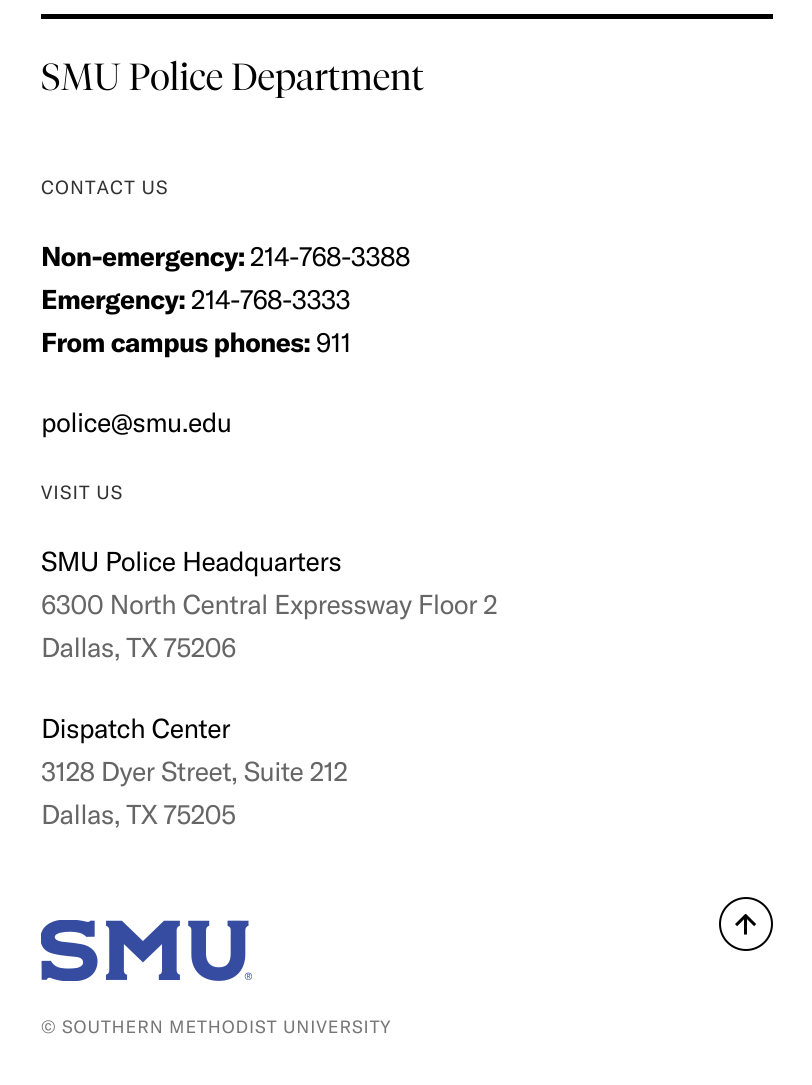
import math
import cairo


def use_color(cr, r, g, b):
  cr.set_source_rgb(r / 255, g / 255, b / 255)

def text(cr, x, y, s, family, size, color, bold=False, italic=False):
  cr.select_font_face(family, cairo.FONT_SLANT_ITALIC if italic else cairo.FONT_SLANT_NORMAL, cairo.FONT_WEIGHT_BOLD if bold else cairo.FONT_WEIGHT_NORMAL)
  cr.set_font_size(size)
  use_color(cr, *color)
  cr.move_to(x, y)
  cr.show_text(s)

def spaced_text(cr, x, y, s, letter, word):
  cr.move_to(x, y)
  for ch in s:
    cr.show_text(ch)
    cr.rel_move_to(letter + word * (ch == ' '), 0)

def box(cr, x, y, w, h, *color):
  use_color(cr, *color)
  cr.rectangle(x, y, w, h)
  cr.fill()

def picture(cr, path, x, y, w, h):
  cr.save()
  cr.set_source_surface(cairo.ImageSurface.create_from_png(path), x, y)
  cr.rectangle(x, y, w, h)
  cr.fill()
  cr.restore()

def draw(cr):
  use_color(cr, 255, 255, 255)
  cr.paint()
  box(cr, 41, 14, 732, 5, 0, 0, 0)
  cr.arc(746, 924, 26, 0, 2 * math.pi)
  cr.stroke()
  picture(cr, "img_01.png", 735, 914, 21, 21)
  picture(cr, "img_02.png", 41, 920, 211, 61)
  text(cr, 41, 90, "SMU Police Department", "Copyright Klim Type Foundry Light", 37.5, (0, 0, 0))
  cr.select_font_face("GT America")
  cr.set_font_size(18.75)
  use_color(cr, 51, 51, 51)
  spaced_text(cr, 41, 194, "CONTACT US", 1, 0)
  cr.select_font_face("GT America", cairo.FONT_SLANT_NORMAL, cairo.FONT_WEIGHT_BOLD)
  cr.set_font_size(26.9)
  use_color(cr, 0, 0, 0)
  spaced_text(cr, 41, 266, "Non-emergency:", -0.65, 0)
  cr.select_font_face("GT America")
  spaced_text(cr, 250, 266, "214-768-3388", -0.65, 0)
  cr.select_font_face("GT America", cairo.FONT_SLANT_NORMAL, cairo.FONT_WEIGHT_BOLD)
  spaced_text(cr, 41, 309, "Emergency:", -0.65, 0)
  cr.select_font_face("GT America")
  spaced_text(cr, 191, 309, "214-768-3333", -0.65, 0)
  cr.select_font_face("GT America", cairo.FONT_SLANT_NORMAL, cairo.FONT_WEIGHT_BOLD)
  spaced_text(cr, 41, 352, "From campus phones:", -0.65, 0)
  cr.select_font_face("GT America")
  spaced_text(cr, 316, 352, "911", -0.65, 0)
  spaced_text(cr, 41, 432, "police@smu.edu", -0.65, 0)
  cr.set_font_size(18.75)
  use_color(cr, 51, 51, 51)
  spaced_text(cr, 41, 499, "VISIT US", 1, 0)
  cr.set_font_size(26.9)
  use_color(cr, 0, 0, 0)
  spaced_text(cr, 41, 571, "SMU Police Headquarters", -0.65, 0)
  use_color(cr, 102, 102, 102)
  spaced_text(cr, 41, 614, "6300 North Central Expressway Floor 2", -0.65, 0)
  spaced_text(cr, 41, 657, "Dallas, TX 75206", -0.65, 0)
  use_color(cr, 0, 0, 0)
  spaced_text(cr, 41, 738, "Dispatch Center", -0.65, 0)
  use_color(cr, 102, 102, 102)
  spaced_text(cr, 41, 781, "3128 Dyer Street, Suite 212", -0.65, 0)
  spaced_text(cr, 41, 824, "Dallas, TX 75205", -0.65, 0)
  cr.set_font_size(17.5)
  use_color(cr, 118, 118, 118)
  spaced_text(cr, 41, 1033, "© SOUTHERN METHODIST UNIVERSITY", 0.9, 0)


surface = cairo.ImageSurface(cairo.FORMAT_RGB24, 812, 1085)
cr = cairo.Context(surface)
options = cairo.FontOptions()
options.set_hint_metrics(cairo.HINT_METRICS_OFF)
options.set_hint_style(cairo.HINT_STYLE_NONE)
cr.set_font_options(options)
cr.set_miter_limit(4)
draw(cr)
surface.write_to_png("out.png")
